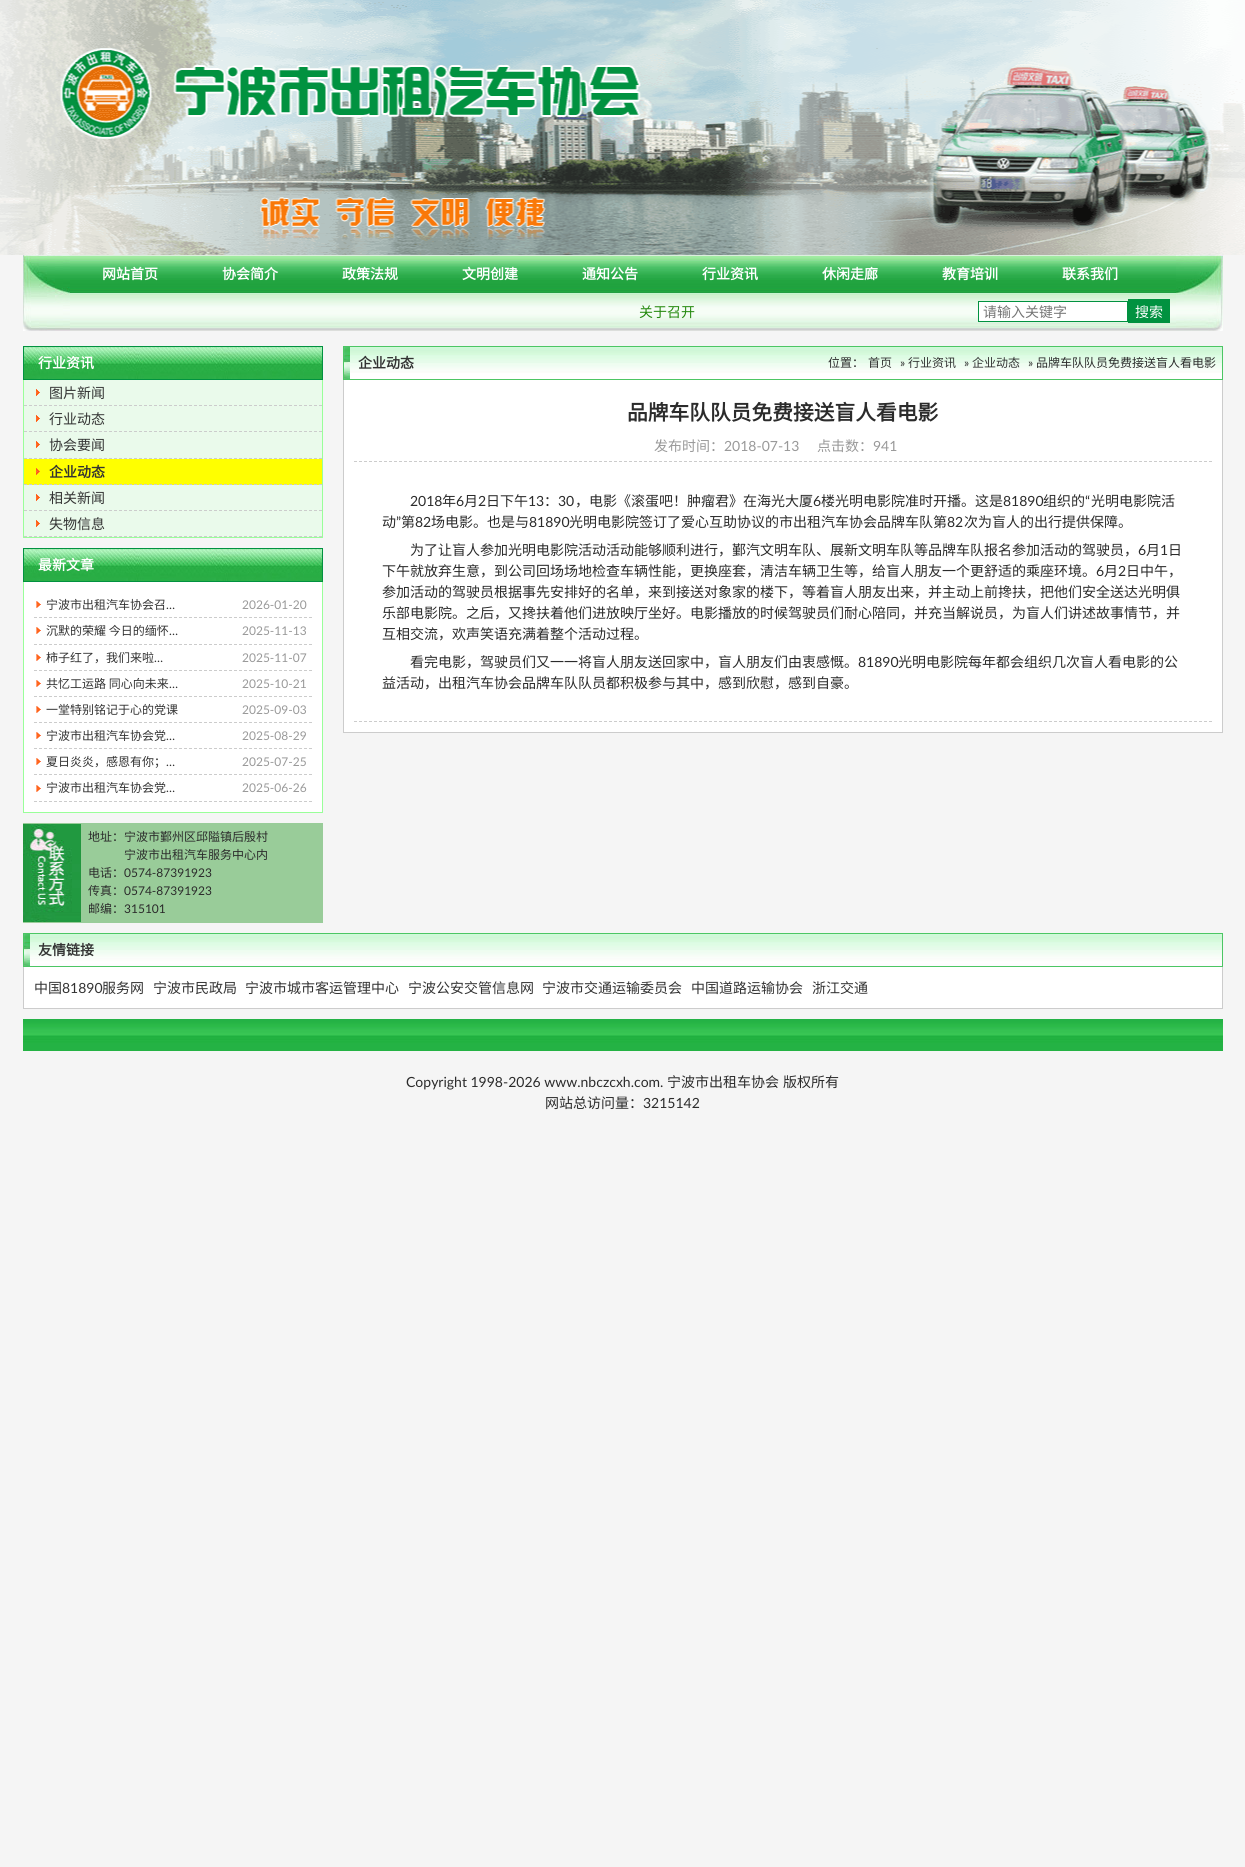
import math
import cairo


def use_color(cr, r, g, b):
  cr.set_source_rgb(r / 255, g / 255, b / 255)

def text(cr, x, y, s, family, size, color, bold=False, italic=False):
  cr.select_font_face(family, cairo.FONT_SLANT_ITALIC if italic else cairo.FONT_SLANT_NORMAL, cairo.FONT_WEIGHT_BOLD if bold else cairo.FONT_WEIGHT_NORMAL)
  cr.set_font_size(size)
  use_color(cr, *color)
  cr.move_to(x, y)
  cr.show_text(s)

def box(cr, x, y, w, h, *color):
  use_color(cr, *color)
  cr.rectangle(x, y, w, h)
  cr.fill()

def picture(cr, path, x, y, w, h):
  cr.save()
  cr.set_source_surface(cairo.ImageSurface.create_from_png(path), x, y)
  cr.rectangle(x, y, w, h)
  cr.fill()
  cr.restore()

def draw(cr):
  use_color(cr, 245, 245, 245)
  cr.paint()
  picture(cr, "img_01.png", 0, 0, 1245, 255)
  picture(cr, "img_02.png", 70, 255, 1106, 76)
  picture(cr, "img_03.png", 23, 255, 47, 76)
  use_color(cr, 255, 255, 255)
  cr.rectangle(978.5, 301.5, 149, 20)
  cr.fill_preserve()
  use_color(cr, 1, 146, 64)
  cr.set_line_width(1)
  cr.stroke()
  box(cr, 1128, 299, 42, 24, 1, 146, 64)
  picture(cr, "img_04.png", 1176, 255, 47, 76)
  picture(cr, "img_05.png", 24, 347, 298, 32)
  cr.rectangle(23.5, 346.5, 299, 33)
  cr.stroke()
  box(cr, 322, 380, 1, 158, 153, 255, 153)
  box(cr, 23, 537, 300, 1, 153, 255, 153)
  box(cr, 23, 380, 1, 158, 153, 255, 153)
  box(cr, 24, 380, 298, 157, 234, 250, 235)
  picture(cr, "img_06.png", 36, 389, 4, 7)
  cr.new_path()
  cr.move_to(24, 405.5)
  cr.line_to(322, 405.5)
  use_color(cr, 204, 204, 204)
  cr.set_dash([3, 2])
  cr.stroke()
  picture(cr, "img_06.png", 36, 415, 4, 7)
  cr.new_path()
  cr.move_to(24, 431.5)
  cr.line_to(322, 431.5)
  cr.stroke()
  picture(cr, "img_06.png", 36, 441, 4, 7)
  cr.new_path()
  cr.move_to(24, 458.5)
  cr.line_to(322, 458.5)
  cr.stroke()
  box(cr, 24, 459, 298, 26, 255, 255, 0)
  picture(cr, "img_07.png", 36, 468, 4, 7)
  cr.new_path()
  cr.move_to(24, 484.5)
  cr.line_to(322, 484.5)
  use_color(cr, 204, 204, 204)
  cr.stroke()
  picture(cr, "img_06.png", 36, 494, 4, 7)
  cr.new_path()
  cr.move_to(24, 510.5)
  cr.line_to(322, 510.5)
  cr.stroke()
  picture(cr, "img_06.png", 36, 520, 4, 7)
  cr.new_path()
  cr.move_to(24, 536.5)
  cr.line_to(322, 536.5)
  cr.stroke()
  picture(cr, "img_05.png", 24, 549, 298, 32)
  cr.rectangle(23.5, 548.5, 299, 33)
  use_color(cr, 1, 146, 64)
  cr.set_dash([])
  cr.stroke()
  box(cr, 24, 582, 298, 230, 255, 255, 255)
  box(cr, 322, 582, 1, 231, 153, 255, 153)
  box(cr, 23, 812, 300, 1, 153, 255, 153)
  box(cr, 23, 582, 1, 231, 153, 255, 153)
  picture(cr, "img_08.png", 36, 601, 5, 7)
  cr.new_path()
  cr.move_to(34, 617.5)
  cr.line_to(312, 617.5)
  use_color(cr, 204, 204, 204)
  cr.set_dash([3, 2])
  cr.stroke()
  picture(cr, "img_08.png", 36, 627, 5, 7)
  cr.new_path()
  cr.move_to(34, 644.5)
  cr.line_to(312, 644.5)
  cr.stroke()
  picture(cr, "img_08.png", 36, 654, 5, 7)
  cr.new_path()
  cr.move_to(34, 670.5)
  cr.line_to(312, 670.5)
  cr.stroke()
  picture(cr, "img_08.png", 36, 680, 5, 7)
  cr.new_path()
  cr.move_to(34, 696.5)
  cr.line_to(312, 696.5)
  cr.stroke()
  picture(cr, "img_08.png", 36, 706, 5, 7)
  cr.new_path()
  cr.move_to(34, 722.5)
  cr.line_to(312, 722.5)
  cr.stroke()
  picture(cr, "img_08.png", 36, 732, 5, 7)
  cr.new_path()
  cr.move_to(34, 748.5)
  cr.line_to(312, 748.5)
  cr.stroke()
  picture(cr, "img_08.png", 36, 758, 5, 7)
  cr.new_path()
  cr.move_to(34, 774.5)
  cr.line_to(312, 774.5)
  cr.stroke()
  picture(cr, "img_08.png", 36, 785, 5, 7)
  cr.new_path()
  cr.move_to(34, 801.5)
  cr.line_to(312, 801.5)
  cr.stroke()
  box(cr, 23, 823, 300, 100, 153, 204, 153)
  picture(cr, "img_09.png", 23, 824, 58, 98)
  box(cr, 344, 373, 878, 359, 255, 255, 255)
  picture(cr, "img_10.png", 350, 347, 872, 26)
  cr.rectangle(343.5, 346.5, 879, 33)
  use_color(cr, 76, 198, 100)
  cr.set_dash([])
  cr.stroke()
  picture(cr, "img_11.png", 344, 347, 6, 32)
  box(cr, 1222, 380, 1, 353, 204, 204, 204)
  box(cr, 343, 732, 880, 1, 204, 204, 204)
  box(cr, 343, 380, 1, 353, 204, 204, 204)
  cr.new_path()
  cr.move_to(354, 461.5)
  cr.line_to(1212, 461.5)
  cr.set_dash([3, 2])
  cr.stroke()
  cr.new_path()
  cr.move_to(354, 721.5)
  cr.line_to(1212, 721.5)
  cr.stroke()
  picture(cr, "img_12.png", 30, 934, 1192, 32)
  cr.rectangle(23.5, 933.5, 1199, 33)
  use_color(cr, 76, 198, 100)
  cr.set_dash([])
  cr.stroke()
  picture(cr, "img_11.png", 24, 934, 6, 32)
  box(cr, 24, 967, 1198, 41, 255, 255, 255)
  box(cr, 1222, 967, 1, 42, 204, 204, 204)
  box(cr, 23, 1008, 1200, 1, 204, 204, 204)
  box(cr, 23, 967, 1, 42, 204, 204, 204)
  picture(cr, "img_13.png", 23, 1019, 1200, 32)
  text(cr, 102, 279, "网站首页", "Noto Sans CJK SC", 14, (255, 255, 255), bold=True)
  text(cr, 222, 279, "协会简介", "Noto Sans CJK SC", 14, (255, 255, 255), bold=True)
  text(cr, 342, 279, "政策法规", "Noto Sans CJK SC", 14, (255, 255, 255), bold=True)
  text(cr, 462, 279, "文明创建", "Noto Sans CJK SC", 14, (255, 255, 255), bold=True)
  text(cr, 582, 279, "通知公告", "Noto Sans CJK SC", 14, (255, 255, 255), bold=True)
  text(cr, 702, 279, "行业资讯", "Noto Sans CJK SC", 14, (255, 255, 255), bold=True)
  text(cr, 822, 279, "休闲走廊", "Noto Sans CJK SC", 14, (255, 255, 255), bold=True)
  text(cr, 942, 279, "教育培训", "Noto Sans CJK SC", 14, (255, 255, 255), bold=True)
  text(cr, 1062, 279, "联系我们", "Noto Sans CJK SC", 14, (255, 255, 255), bold=True)
  text(cr, 639, 317, "关于召开", "Noto Sans CJK SC", 14, (36, 137, 13))
  text(cr, 983, 317, "请输入关键字", "Noto Sans CJK SC", 14, (117, 117, 117))
  text(cr, 1135, 317, "搜索", "Noto Sans CJK SC", 14, (255, 255, 255))
  text(cr, 38, 368, "行业资讯", "Noto Sans CJK SC", 14, (255, 255, 255), bold=True)
  text(cr, 49, 398, "图片新闻", "Noto Sans CJK SC", 14, (51, 51, 51))
  text(cr, 49, 424, "行业动态", "Noto Sans CJK SC", 14, (51, 51, 51))
  text(cr, 49, 450, "协会要闻", "Noto Sans CJK SC", 14, (51, 51, 51))
  text(cr, 49, 477, "企业动态", "Noto Sans CJK SC", 14, (51, 51, 51), bold=True)
  text(cr, 49, 503, "相关新闻", "Noto Sans CJK SC", 14, (51, 51, 51))
  text(cr, 49, 529, "失物信息", "Noto Sans CJK SC", 14, (51, 51, 51))
  text(cr, 38, 570, "最新文章", "Noto Sans CJK SC", 14, (255, 255, 255), bold=True)
  text(cr, 46, 609, "宁波市出租汽车协会召", "Noto Sans CJK SC", 12, (51, 51, 51))
  text(cr, 166, 609, "…", "Lato", 12, (51, 51, 51))
  text(cr, 242, 609, "2026-01-20", "Lato", 12, (153, 153, 153))
  text(cr, 46, 635, "沉默的荣耀 今日的缅怀", "Noto Sans CJK SC", 12, (51, 51, 51))
  text(cr, 169, 635, "…", "Lato", 12, (51, 51, 51))
  text(cr, 242, 635, "2025-11-13", "Lato", 12, (153, 153, 153))
  text(cr, 46, 662, "柿子红了，我们来啦", "Noto Sans CJK SC", 12, (51, 51, 51))
  text(cr, 154, 662, "…", "Lato", 12, (51, 51, 51))
  text(cr, 242, 662, "2025-11-07", "Lato", 12, (153, 153, 153))
  text(cr, 46, 688, "共忆工运路 同心向未来", "Noto Sans CJK SC", 12, (51, 51, 51))
  text(cr, 169, 688, "…", "Lato", 12, (51, 51, 51))
  text(cr, 242, 688, "2025-10-21", "Lato", 12, (153, 153, 153))
  text(cr, 46, 714, "一堂特别铭记于心的党课", "Noto Sans CJK SC", 12, (51, 51, 51))
  text(cr, 242, 714, "2025-09-03", "Lato", 12, (153, 153, 153))
  text(cr, 46, 740, "宁波市出租汽车协会党", "Noto Sans CJK SC", 12, (51, 51, 51))
  text(cr, 166, 740, "…", "Lato", 12, (51, 51, 51))
  text(cr, 242, 740, "2025-08-29", "Lato", 12, (153, 153, 153))
  text(cr, 46, 766, "夏日炎炎，感恩有你；", "Noto Sans CJK SC", 12, (51, 51, 51))
  text(cr, 166, 766, "…", "Lato", 12, (51, 51, 51))
  text(cr, 242, 766, "2025-07-25", "Lato", 12, (153, 153, 153))
  text(cr, 46, 792, "宁波市出租汽车协会党", "Noto Sans CJK SC", 12, (51, 51, 51))
  text(cr, 166, 792, "…", "Lato", 12, (51, 51, 51))
  text(cr, 242, 792, "2025-06-26", "Lato", 12, (153, 153, 153))
  text(cr, 88, 841, "地址：宁波市鄞州区邱隘镇后殷村", "Noto Sans CJK SC", 12, (43, 43, 43))
  text(cr, 124, 859, "宁波市出租汽车服务中心内", "Noto Sans CJK SC", 12, (43, 43, 43))
  text(cr, 88, 877, "电话：", "Noto Sans CJK SC", 12, (43, 43, 43))
  text(cr, 124, 877, "0574-87391923", "Lato", 12, (43, 43, 43))
  text(cr, 88, 895, "传真：", "Noto Sans CJK SC", 12, (43, 43, 43))
  text(cr, 124, 895, "0574-87391923", "Lato", 12, (43, 43, 43))
  text(cr, 88, 913, "邮编：", "Noto Sans CJK SC", 12, (43, 43, 43))
  text(cr, 124, 913, "315101", "Lato", 12, (43, 43, 43))
  text(cr, 358, 368, "企业动态", "Noto Sans CJK SC", 14, (51, 51, 51), bold=True)
  text(cr, 828, 367, "位置：", "Noto Sans CJK SC", 12, (43, 43, 43))
  text(cr, 868, 367, "首页", "Noto Sans CJK SC", 12, (51, 51, 51))
  text(cr, 900, 367, "»", "Lato", 12, (43, 43, 43))
  text(cr, 908, 367, "行业资讯", "Noto Sans CJK SC", 12, (51, 51, 51))
  text(cr, 964, 367, "»", "Lato", 12, (43, 43, 43))
  text(cr, 972, 367, "企业动态", "Noto Sans CJK SC", 12, (51, 51, 51))
  text(cr, 1028, 367, "»", "Lato", 12, (43, 43, 43))
  text(cr, 1036, 367, "品牌车队队员免费接送盲人看电影", "Noto Sans CJK SC", 12, (43, 43, 43))
  text(cr, 627, 420, "品牌车队队员免费接送盲人看电影", "Noto Sans CJK SC", 20.75, (43, 43, 43), bold=True)
  text(cr, 654, 451, "发布时间：", "Noto Sans CJK SC", 14, (153, 153, 153))
  text(cr, 724, 451, "2018-07-13", "Lato", 14, (153, 153, 153))
  text(cr, 817, 451, "点击数：", "Noto Sans CJK SC", 14, (153, 153, 153))
  text(cr, 873, 451, "941", "Lato", 14, (153, 153, 153))
  text(cr, 410, 506, "2018", "Lato", 14, (43, 43, 43))
  text(cr, 442, 506, "年", "Noto Sans CJK SC", 14, (43, 43, 43))
  text(cr, 456, 506, "6", "Lato", 14, (43, 43, 43))
  text(cr, 464, 506, "月", "Noto Sans CJK SC", 14, (43, 43, 43))
  text(cr, 478, 506, "2", "Lato", 14, (43, 43, 43))
  text(cr, 486, 506, "日下午", "Noto Sans CJK SC", 14, (43, 43, 43))
  text(cr, 528, 506, "13", "Lato", 14, (43, 43, 43))
  text(cr, 544, 506, "：", "Noto Sans CJK SC", 14, (43, 43, 43))
  text(cr, 558, 506, "30", "Lato", 14, (43, 43, 43))
  text(cr, 575, 506, "，电影《滚蛋吧！肿瘤君》在海光大厦", "Noto Sans CJK SC", 14, (43, 43, 43))
  text(cr, 813, 506, "6", "Lato", 14, (43, 43, 43))
  text(cr, 821, 506, "楼光明电影院准时开播。这是", "Noto Sans CJK SC", 14, (43, 43, 43))
  text(cr, 1003, 506, "81890", "Lato", 14, (43, 43, 43))
  text(cr, 1043, 506, "组织的", "Noto Sans CJK SC", 14, (43, 43, 43))
  text(cr, 1085, 506, "“", "Lato", 14, (43, 43, 43))
  text(cr, 1091, 506, "光明电影院活", "Noto Sans CJK SC", 14, (43, 43, 43))
  text(cr, 382, 527, "动", "Noto Sans CJK SC", 14, (43, 43, 43))
  text(cr, 396, 527, "”", "Lato", 14, (43, 43, 43))
  text(cr, 401, 527, "第", "Noto Sans CJK SC", 14, (43, 43, 43))
  text(cr, 415, 527, "82", "Lato", 14, (43, 43, 43))
  text(cr, 431, 527, "场电影。也是与", "Noto Sans CJK SC", 14, (43, 43, 43))
  text(cr, 529, 527, "81890", "Lato", 14, (43, 43, 43))
  text(cr, 569, 527, "光明电影院签订了爱心互助协议的市出租汽车协会品牌车队第", "Noto Sans CJK SC", 14, (43, 43, 43))
  text(cr, 947, 527, "82", "Lato", 14, (43, 43, 43))
  text(cr, 964, 527, "次为盲人的出行提供保障。", "Noto Sans CJK SC", 14, (43, 43, 43))
  text(cr, 410, 555, "为了让盲人参加光明电影院活动活动能够顺利进行，鄞汽文明车队、展新文明车队等品牌车队报名参加活动的驾驶员，", "Noto Sans CJK SC", 14, (43, 43, 43))
  text(cr, 1138, 555, "6", "Lato", 14, (43, 43, 43))
  text(cr, 1146, 555, "月", "Noto Sans CJK SC", 14, (43, 43, 43))
  text(cr, 1160, 555, "1", "Lato", 14, (43, 43, 43))
  text(cr, 1168, 555, "日", "Noto Sans CJK SC", 14, (43, 43, 43))
  text(cr, 382, 576, "下午就放弃生意，到公司回场场地检查车辆性能，更换座套，清洁车辆卫生等，给盲人朋友一个更舒适的乘座环境。", "Noto Sans CJK SC", 14, (43, 43, 43))
  text(cr, 1096, 576, "6", "Lato", 14, (43, 43, 43))
  text(cr, 1104, 576, "月", "Noto Sans CJK SC", 14, (43, 43, 43))
  text(cr, 1118, 576, "2", "Lato", 14, (43, 43, 43))
  text(cr, 1126, 576, "日中午，", "Noto Sans CJK SC", 14, (43, 43, 43))
  text(cr, 382, 597, "参加活动的驾驶员根据事先安排好的名单，来到接送对象家的楼下，等着盲人朋友出来，并主动上前搀扶，把他们安全送达光明俱", "Noto Sans CJK SC", 14, (43, 43, 43))
  text(cr, 382, 618, "乐部电影院。之后，又搀扶着他们进放映厅坐好。电影播放的时候驾驶员们耐心陪同，并充当解说员，为盲人们讲述故事情节，并", "Noto Sans CJK SC", 14, (43, 43, 43))
  text(cr, 382, 639, "互相交流，欢声笑语充满着整个活动过程。", "Noto Sans CJK SC", 14, (43, 43, 43))
  text(cr, 410, 667, "看完电影，驾驶员们又一一将盲人朋友送回家中，盲人朋友们由衷感慨。", "Noto Sans CJK SC", 14, (43, 43, 43))
  text(cr, 858, 667, "81890", "Lato", 14, (43, 43, 43))
  text(cr, 898, 667, "光明电影院每年都会组织几次盲人看电影的公", "Noto Sans CJK SC", 14, (43, 43, 43))
  text(cr, 382, 688, "益活动，出租汽车协会品牌车队队员都积极参与其中，感到欣慰，感到自豪。", "Noto Sans CJK SC", 14, (43, 43, 43))
  text(cr, 38, 955, "友情链接", "Noto Sans CJK SC", 14, (51, 51, 51), bold=True)
  text(cr, 34, 993, "中国", "Noto Sans CJK SC", 14, (51, 51, 51))
  text(cr, 62, 993, "81890", "Lato", 14, (51, 51, 51))
  text(cr, 102, 993, "服务网", "Noto Sans CJK SC", 14, (51, 51, 51))
  text(cr, 153, 993, "宁波市民政局", "Noto Sans CJK SC", 14, (51, 51, 51))
  text(cr, 245, 993, "宁波市城市客运管理中心", "Noto Sans CJK SC", 14, (51, 51, 51))
  text(cr, 408, 993, "宁波公安交管信息网", "Noto Sans CJK SC", 14, (51, 51, 51))
  text(cr, 542, 993, "宁波市交通运输委员会", "Noto Sans CJK SC", 14, (51, 51, 51))
  text(cr, 691, 993, "中国道路运输协会", "Noto Sans CJK SC", 14, (51, 51, 51))
  text(cr, 812, 993, "浙江交通", "Noto Sans CJK SC", 14, (51, 51, 51))
  text(cr, 406, 1087, "Copyright 1998-2026 www.nbczcxh.com.", "Lato", 14, (43, 43, 43))
  text(cr, 667, 1087, "宁波市出租车协会", "Noto Sans CJK SC", 14, (43, 43, 43))
  text(cr, 783, 1087, "版权所有", "Noto Sans CJK SC", 14, (43, 43, 43))
  text(cr, 545, 1108, "网站总访问量：", "Noto Sans CJK SC", 14, (43, 43, 43))
  text(cr, 643, 1108, "3215142", "Lato", 14, (43, 43, 43))


surface = cairo.ImageSurface(cairo.FORMAT_RGB24, 1245, 1867)
cr = cairo.Context(surface)
options = cairo.FontOptions()
options.set_hint_metrics(cairo.HINT_METRICS_OFF)
options.set_hint_style(cairo.HINT_STYLE_NONE)
cr.set_font_options(options)
cr.set_miter_limit(4)
draw(cr)
surface.write_to_png("out.png")
